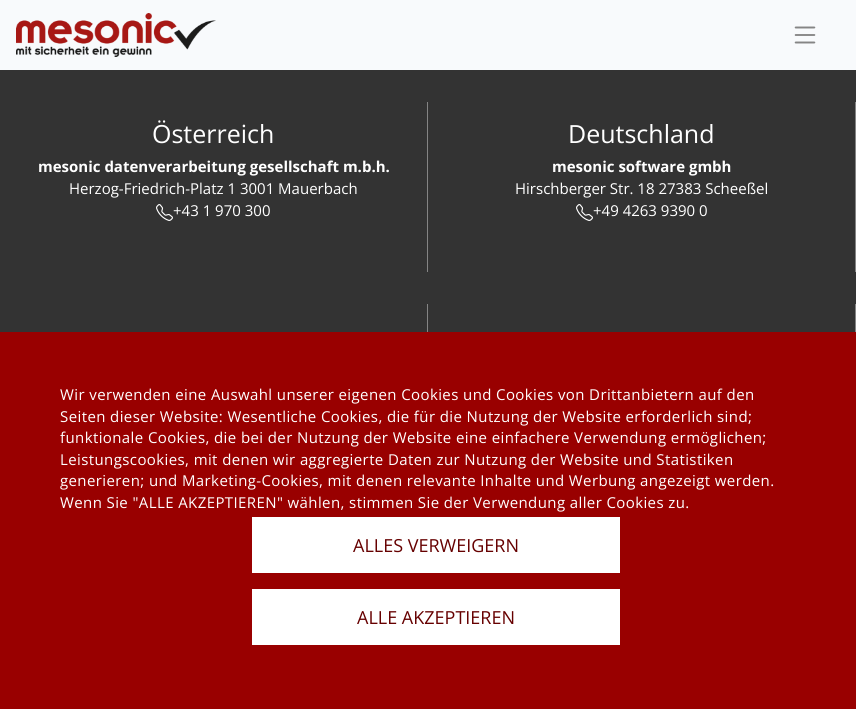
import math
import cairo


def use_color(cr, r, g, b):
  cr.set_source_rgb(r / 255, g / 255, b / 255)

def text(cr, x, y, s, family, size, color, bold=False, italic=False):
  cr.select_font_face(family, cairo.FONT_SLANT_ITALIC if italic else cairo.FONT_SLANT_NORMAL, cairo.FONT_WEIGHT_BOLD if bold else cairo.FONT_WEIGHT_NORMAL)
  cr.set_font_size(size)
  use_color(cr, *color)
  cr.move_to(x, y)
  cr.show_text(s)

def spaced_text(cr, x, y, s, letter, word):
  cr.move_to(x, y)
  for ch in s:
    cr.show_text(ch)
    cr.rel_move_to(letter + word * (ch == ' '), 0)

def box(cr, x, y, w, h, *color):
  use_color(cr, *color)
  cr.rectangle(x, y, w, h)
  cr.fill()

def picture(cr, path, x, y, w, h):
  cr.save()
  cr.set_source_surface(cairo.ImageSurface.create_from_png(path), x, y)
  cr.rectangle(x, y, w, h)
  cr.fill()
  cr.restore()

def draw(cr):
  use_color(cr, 51, 51, 51)
  cr.paint()
  box(cr, 0, 0, 856, 70, 248, 250, 252)
  picture(cr, "img_01.png", 16, 13, 200, 44)
  picture(cr, "img_02.png", 794, 26, 22, 18)
  box(cr, 427, 102, 1, 170, 133, 133, 133)
  picture(cr, "img_03.png", 156, 204, 17, 17)
  box(cr, 855, 102, 1, 170, 133, 133, 133)
  picture(cr, "img_03.png", 576, 204, 17, 17)
  box(cr, 427, 304, 1, 28, 133, 133, 133)
  box(cr, 855, 304, 1, 28, 133, 133, 133)
  box(cr, 0, 332, 856, 377, 153, 0, 0)
  box(cr, 252, 517, 368, 56, 255, 255, 255)
  box(cr, 252, 589, 368, 56, 255, 255, 255)
  text(cr, 152, 143, "Österreich", "Open Sans", 25, (255, 255, 255))
  text(cr, 38, 172, "mesonic datenverarbeitung gesellschaft m.b.h.", "Open Sans", 15, (255, 255, 255), bold=True)
  text(cr, 69, 194, "Herzog-Friedrich-Platz 1 3001 Mauerbach", "Open Sans", 15, (255, 255, 255))
  text(cr, 173, 216, "+43 1 970 300", "Open Sans", 15, (255, 255, 255))
  text(cr, 568, 143, "Deutschland", "Open Sans", 25, (255, 255, 255))
  text(cr, 552, 172, "mesonic software gmbh", "Open Sans", 15, (255, 255, 255), bold=True)
  text(cr, 515, 194, "Hirschberger Str. 18 27383 Scheeßel", "Open Sans", 15, (255, 255, 255))
  text(cr, 593, 216, "+49 4263 9390 0", "Open Sans", 15, (255, 255, 255))
  spaced_text(cr, 60, 400, "Wir verwenden eine Auswahl unserer eigenen Cookies und Cookies von Drittanbietern auf den", 0.4, 0)
  spaced_text(cr, 60, 422, "Seiten dieser Website: Wesentliche Cookies, die für die Nutzung der Website erforderlich sind;", 0.4, 0)
  spaced_text(cr, 60, 443, "funktionale Cookies, die bei der Nutzung der Website eine einfachere Verwendung ermöglichen;", 0.4, 0)
  spaced_text(cr, 60, 465, "Leistungscookies, mit denen wir aggregierte Daten zur Nutzung der Website und Statistiken", 0.4, 0)
  spaced_text(cr, 60, 486, "generieren; und Marketing-Cookies, mit denen relevante Inhalte und Werbung angezeigt werden.", 0.4, 0)
  spaced_text(cr, 60, 508, "Wenn Sie \"ALLE AKZEPTIEREN\" wählen, stimmen Sie der Verwendung aller Cookies zu.", 0.4, 0)
  text(cr, 353, 552, "ALLES VERWEIGERN", "Open Sans", 18, (102, 0, 0))
  text(cr, 357, 624, "ALLE AKZEPTIEREN", "Open Sans", 18, (102, 0, 0))


surface = cairo.ImageSurface(cairo.FORMAT_RGB24, 856, 709)
cr = cairo.Context(surface)
options = cairo.FontOptions()
options.set_hint_metrics(cairo.HINT_METRICS_OFF)
options.set_hint_style(cairo.HINT_STYLE_NONE)
cr.set_font_options(options)
cr.set_miter_limit(4)
draw(cr)
surface.write_to_png("out.png")
